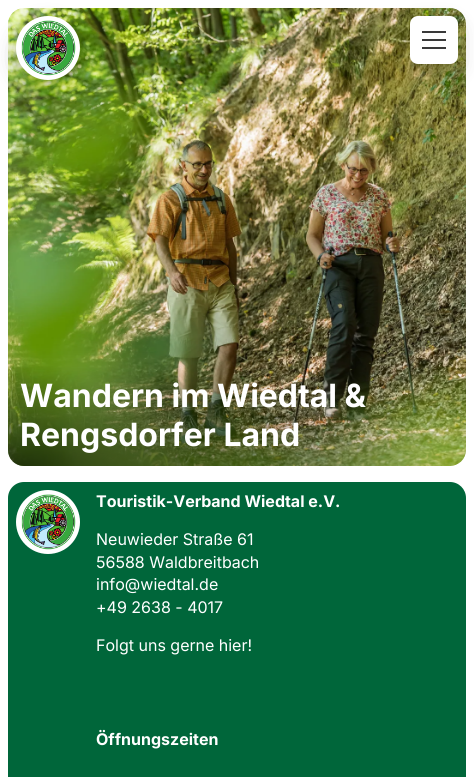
import math
import cairo


def use_color(cr, r, g, b):
  cr.set_source_rgb(r / 255, g / 255, b / 255)

def text(cr, x, y, s, family, size, color, bold=False, italic=False):
  cr.select_font_face(family, cairo.FONT_SLANT_ITALIC if italic else cairo.FONT_SLANT_NORMAL, cairo.FONT_WEIGHT_BOLD if bold else cairo.FONT_WEIGHT_NORMAL)
  cr.set_font_size(size)
  use_color(cr, *color)
  cr.move_to(x, y)
  cr.show_text(s)

def box(cr, x, y, w, h, *color):
  use_color(cr, *color)
  cr.rectangle(x, y, w, h)
  cr.fill()

def round_rect(cr, x, y, w, h, r):
  cr.new_sub_path()
  for i, (u, v) in enumerate([(x + w - r, y + h - r), (x + r, y + h - r), (x + r, y + r), (x + w - r, y + r)]):
    cr.arc(u, v, r, i * math.pi / 2, (i + 1) * math.pi / 2)
  cr.close_path()

def shadow(cr, x, y, w, h, r, blur, alpha):
  cr.push_group_with_content(cairo.CONTENT_ALPHA)
  cr.set_operator(cairo.OPERATOR_SOURCE)
  for i in range(15, -16, -2):
    e = blur * i / 6
    if min(w, h) + 2 * e > 0:
      cr.set_source_rgba(0, 0, 0, alpha * math.erfc((i - 1) / 8.5) / 2)
      round_rect(cr, x - e, y - e, w + 2 * e, h + 2 * e, max(0, min(r + e + blur * .6, min(w, h) / 2 + e)))
      cr.fill()
  cr.mask(cr.pop_group())

def picture(cr, path, x, y, w, h):
  cr.save()
  cr.set_source_surface(cairo.ImageSurface.create_from_png(path), x, y)
  cr.rectangle(x, y, w, h)
  cr.fill()
  cr.restore()

def draw(cr):
  use_color(cr, 255, 255, 255)
  cr.paint()
  picture(cr, "img_02.png", 8, 8, 458, 458)
  use_color(cr, 0, 0, 0)
  shadow(cr, 16, 24, 64, 64, 32, 10, 0.25)
  use_color(cr, 255, 255, 255)
  cr.arc(48, 48, 32, 0, 2 * math.pi)
  cr.fill()
  picture(cr, "img_01.png", 21, 20, 55, 56)
  use_color(cr, 0, 0, 0)
  shadow(cr, 410, 24, 48, 48, 8, 10, 0.25)
  use_color(cr, 255, 255, 255)
  round_rect(cr, 410, 16, 48, 48, 8)
  cr.fill()
  box(cr, 422, 31, 24, 2, 58, 58, 58)
  box(cr, 422, 39, 24, 2, 58, 58, 58)
  box(cr, 422, 47, 24, 2, 58, 58, 58)
  gradient = cairo.RadialGradient(0, 0, 0, 0, 0, 1)
  gradient.set_matrix(cairo.Matrix(1 / 458, 0, 0, 1 / 101, -1 * 8 / 458, -1 * 466 / 101))
  gradient.add_color_stop_rgba(0, 0, 0, 0, 0.65)
  gradient.add_color_stop_rgba(1, 0, 0, 0, 0)
  cr.set_source(gradient)
  cr.new_path()
  cr.move_to(8, 365)
  cr.line_to(466, 365)
  cr.line_to(466, 450)
  cr.curve_to(466, 459, 459, 466, 450, 466)
  cr.line_to(24, 466)
  cr.curve_to(15, 466, 8, 459, 8, 450)
  cr.close_path()
  cr.fill()
  use_color(cr, 0, 102, 58)
  round_rect(cr, 8, 482, 458, 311, 16)
  cr.fill()
  use_color(cr, 255, 255, 255)
  cr.arc(48, 522, 32, 0, 2 * math.pi)
  cr.fill()
  picture(cr, "img_03.png", 21, 494, 55, 56)
  text(cr, 20, 407, "Wandern im Wiedtal &", "Inter", 32, (255, 255, 255), bold=True)
  text(cr, 20, 446, "Rengsdorfer Land", "Inter", 32, (255, 255, 255), bold=True)
  text(cr, 96, 507, "Touristik-Verband Wiedtal e.V.", "Inter", 16, (255, 255, 255), bold=True)
  text(cr, 96, 545, "Neuwieder Straße 61", "Inter", 16, (255, 255, 255))
  text(cr, 96, 568, "56588 Waldbreitbach", "Inter", 16, (255, 255, 255))
  text(cr, 96, 590, "info@wiedtal.de", "Inter", 16, (255, 255, 255))
  text(cr, 96, 613, "+49 2638 - 4017", "Inter", 16, (255, 255, 255))
  text(cr, 96, 651, "Folgt uns gerne hier!", "Inter", 16, (255, 255, 255))
  text(cr, 96, 745, "Öffnungszeiten", "Inter", 16, (255, 255, 255), bold=True)


surface = cairo.ImageSurface(cairo.FORMAT_RGB24, 474, 777)
cr = cairo.Context(surface)
options = cairo.FontOptions()
options.set_hint_metrics(cairo.HINT_METRICS_OFF)
options.set_hint_style(cairo.HINT_STYLE_NONE)
cr.set_font_options(options)
cr.set_miter_limit(4)
draw(cr)
surface.write_to_png("out.png")
